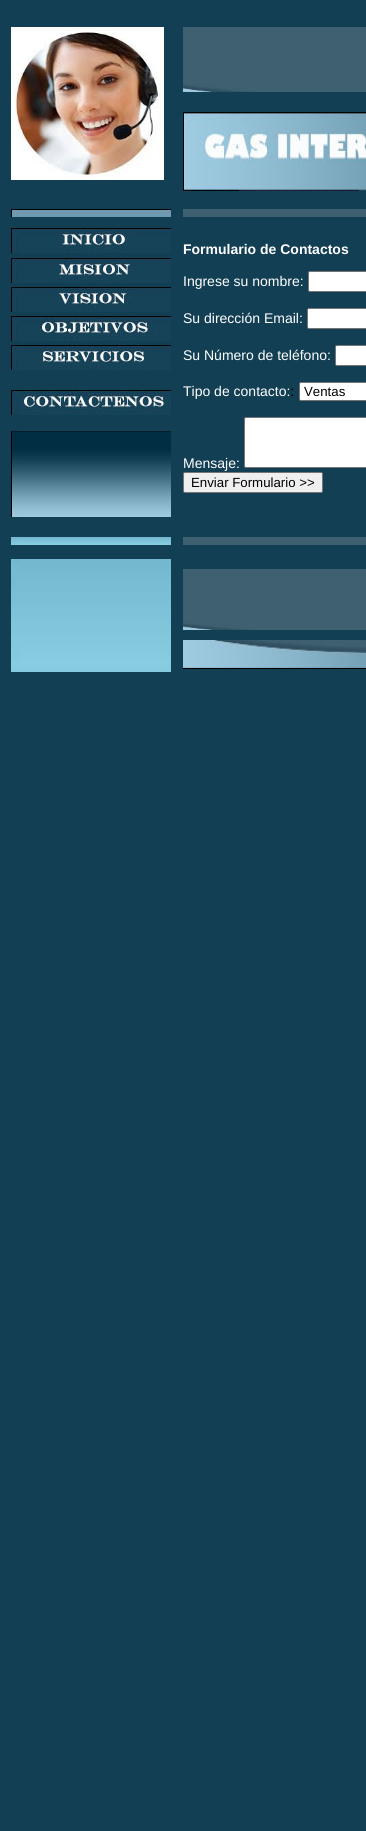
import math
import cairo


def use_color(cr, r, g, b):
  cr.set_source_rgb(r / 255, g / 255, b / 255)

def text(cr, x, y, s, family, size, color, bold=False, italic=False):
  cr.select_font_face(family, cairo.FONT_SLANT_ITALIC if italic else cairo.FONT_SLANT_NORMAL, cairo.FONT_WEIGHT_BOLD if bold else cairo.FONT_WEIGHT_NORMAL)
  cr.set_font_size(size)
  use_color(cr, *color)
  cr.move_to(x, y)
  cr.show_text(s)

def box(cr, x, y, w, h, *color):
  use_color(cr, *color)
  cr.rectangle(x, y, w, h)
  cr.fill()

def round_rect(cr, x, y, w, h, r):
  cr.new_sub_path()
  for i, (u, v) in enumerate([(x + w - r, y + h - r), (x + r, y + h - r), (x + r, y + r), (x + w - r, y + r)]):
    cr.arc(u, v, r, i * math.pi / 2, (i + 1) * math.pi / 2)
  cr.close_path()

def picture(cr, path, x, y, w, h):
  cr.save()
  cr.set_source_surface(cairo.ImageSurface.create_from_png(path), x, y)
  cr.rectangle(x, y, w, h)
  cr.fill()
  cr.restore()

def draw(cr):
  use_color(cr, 19, 63, 84)
  cr.paint()
  picture(cr, "img_01.png", 11, 27, 153, 153)
  picture(cr, "img_02.png", 183, 27, 183, 65)
  picture(cr, "img_03.png", 183, 112, 183, 79)
  picture(cr, "img_04.png", 11, 209, 160, 8)
  box(cr, 183, 209, 183, 8, 63, 96, 113)
  picture(cr, "img_05.png", 11, 258, 160, 25)
  picture(cr, "img_06.png", 11, 228, 160, 25)
  use_color(cr, 255, 255, 255)
  round_rect(cr, 308.5, 271.5, 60, 20, 1.5)
  cr.fill_preserve()
  use_color(cr, 118, 118, 118)
  cr.set_line_width(1)
  cr.stroke()
  use_color(cr, 255, 255, 255)
  round_rect(cr, 307.5, 308.5, 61, 20, 1.5)
  cr.fill_preserve()
  use_color(cr, 118, 118, 118)
  cr.stroke()
  use_color(cr, 255, 255, 255)
  round_rect(cr, 335.5, 345.5, 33, 20, 1.5)
  cr.fill_preserve()
  use_color(cr, 118, 118, 118)
  cr.stroke()
  use_color(cr, 255, 255, 255)
  round_rect(cr, 299.5, 382.5, 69, 18, 1.5)
  cr.fill_preserve()
  use_color(cr, 118, 118, 118)
  cr.stroke()
  use_color(cr, 255, 255, 255)
  round_rect(cr, 244.5, 417.5, 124, 50, 1.5)
  cr.fill_preserve()
  use_color(cr, 118, 118, 118)
  cr.stroke()
  use_color(cr, 239, 239, 239)
  round_rect(cr, 183.5, 472.5, 139, 20, 1.5)
  cr.fill_preserve()
  use_color(cr, 118, 118, 118)
  cr.stroke()
  picture(cr, "img_07.png", 11, 287, 160, 25)
  picture(cr, "img_08.png", 11, 316, 160, 25)
  picture(cr, "img_09.png", 11, 345, 160, 25)
  picture(cr, "img_10.png", 11, 390, 160, 25)
  picture(cr, "img_11.png", 11, 431, 160, 86)
  picture(cr, "img_12.png", 11, 537, 160, 8)
  box(cr, 183, 537, 183, 8, 63, 96, 113)
  picture(cr, "img_13.png", 11, 559, 160, 113)
  picture(cr, "img_14.png", 183, 569, 183, 61)
  picture(cr, "img_15.png", 183, 640, 183, 29)
  text(cr, 183, 254, "Formulario de Contactos", "Liberation Sans", 14, (255, 255, 255), bold=True)
  text(cr, 183, 286, "Ingrese su nombre:", "Liberation Sans", 14, (255, 255, 255))
  text(cr, 183, 323, "Su dirección Email:", "Liberation Sans", 14, (255, 255, 255))
  text(cr, 183, 360, "Su Número de teléfono:", "Liberation Sans", 14, (255, 255, 255))
  text(cr, 183, 396, "Tipo de contacto:", "Liberation Sans", 14, (255, 255, 255))
  text(cr, 290, 396, ":", "Liberation Serif", 16, (0, 0, 0))
  text(cr, 304, 396, "Ventas", "Liberation Sans", 13.25, (0, 0, 0))
  text(cr, 183, 468, "Mensaje:", "Liberation Sans", 14, (255, 255, 255))
  text(cr, 191, 487, "Enviar Formulario >>", "Liberation Sans", 13.25, (0, 0, 0))


surface = cairo.ImageSurface(cairo.FORMAT_RGB24, 366, 1831)
cr = cairo.Context(surface)
options = cairo.FontOptions()
options.set_hint_metrics(cairo.HINT_METRICS_OFF)
options.set_hint_style(cairo.HINT_STYLE_NONE)
cr.set_font_options(options)
cr.set_miter_limit(4)
draw(cr)
surface.write_to_png("out.png")
